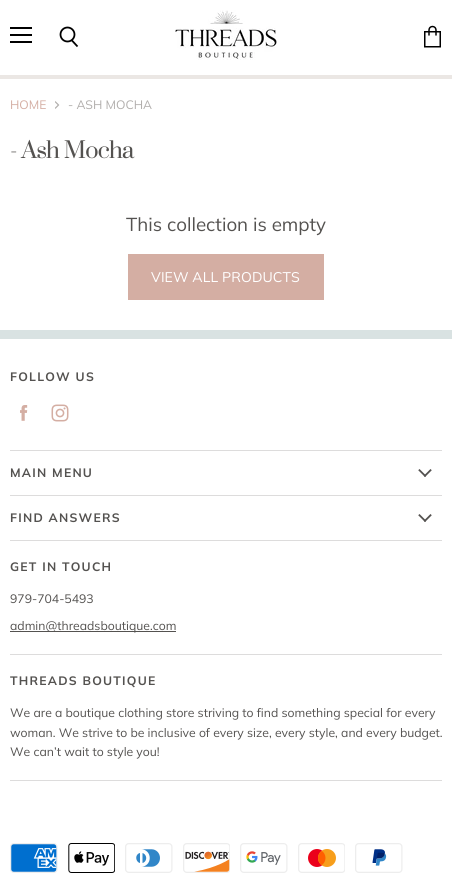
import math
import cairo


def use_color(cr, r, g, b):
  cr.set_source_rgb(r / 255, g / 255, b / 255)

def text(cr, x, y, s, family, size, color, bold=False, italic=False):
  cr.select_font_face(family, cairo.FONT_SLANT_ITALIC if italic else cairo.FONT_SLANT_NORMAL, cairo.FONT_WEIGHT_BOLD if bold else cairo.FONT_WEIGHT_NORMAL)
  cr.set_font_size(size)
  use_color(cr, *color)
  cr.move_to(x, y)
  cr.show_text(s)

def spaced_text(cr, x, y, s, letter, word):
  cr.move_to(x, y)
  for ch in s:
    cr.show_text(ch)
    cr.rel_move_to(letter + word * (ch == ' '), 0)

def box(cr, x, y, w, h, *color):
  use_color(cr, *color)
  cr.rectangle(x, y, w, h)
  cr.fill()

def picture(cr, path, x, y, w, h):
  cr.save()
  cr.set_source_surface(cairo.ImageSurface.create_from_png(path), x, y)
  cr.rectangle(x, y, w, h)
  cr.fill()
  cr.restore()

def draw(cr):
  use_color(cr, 255, 255, 255)
  cr.paint()
  box(cr, 0, 75, 452, 4, 235, 231, 228)
  picture(cr, "img_01.png", 175, 10, 102, 50)
  box(cr, 10, 27, 22, 2, 0, 0, 0)
  box(cr, 10, 34, 22, 2, 0, 0, 0)
  box(cr, 10, 41, 22, 2, 0, 0, 0)
  cr.new_path()
  cr.move_to(77.5, 46.5)
  cr.line_to(71.5, 40)
  cr.set_line_width(1.8)
  cr.stroke()
  cr.arc(67.5, 34.5, 7, 0, 2 * math.pi)
  cr.stroke()
  picture(cr, "img_02.png", 424, 25, 17, 23)
  cr.save()
  cr.new_path()
  cr.move_to(55, 109)
  cr.line_to(55, 101)
  cr.line_to(60, 101)
  cr.line_to(60, 109)
  cr.close_path()
  cr.clip()
  cr.new_path()
  cr.move_to(55, 108.5)
  cr.line_to(58.5, 105)
  cr.line_to(55, 101.5)
  use_color(cr, 177, 174, 172)
  cr.set_line_width(1.2)
  cr.stroke()
  cr.restore()
  box(cr, 128, 254, 196, 46, 212, 174, 163)
  box(cr, 0, 330, 452, 9, 217, 226, 226)
  box(cr, 10, 450, 432, 1, 221, 220, 220)
  picture(cr, "img_03.png", 20, 405, 8, 16)
  picture(cr, "img_04.png", 51, 404, 18, 18)
  box(cr, 10, 495, 432, 1, 221, 220, 220)
  picture(cr, "img_05.png", 418, 469, 14, 8)
  box(cr, 10, 540, 432, 1, 221, 220, 220)
  picture(cr, "img_05.png", 418, 514, 14, 8)
  box(cr, 10, 654, 432, 1, 221, 220, 220)
  box(cr, 10, 631, 166, 1, 84, 82, 80)
  box(cr, 10, 780, 432, 1, 221, 220, 220)
  picture(cr, "img_06.png", 10, 843, 48, 30)
  picture(cr, "img_07.png", 68, 843, 47, 30)
  picture(cr, "img_08.png", 125, 843, 48, 30)
  picture(cr, "img_09.png", 183, 843, 47, 30)
  picture(cr, "img_10.png", 240, 843, 48, 30)
  picture(cr, "img_11.png", 298, 843, 47, 30)
  picture(cr, "img_12.png", 355, 843, 48, 30)
  text(cr, 10, 109, "HOME", "Muli", 12.2, (212, 174, 163))
  text(cr, 68, 109, "- ASH MOCHA", "Muli", 12.2, (177, 174, 172))
  cr.select_font_face("Suranna")
  cr.set_font_size(28)
  use_color(cr, 84, 82, 80)
  spaced_text(cr, 10, 158, "- Ash Mocha", -0.75, 0)
  text(cr, 126, 231, "This collection is empty", "Muli", 18.75, (84, 82, 80))
  cr.set_font_size(14)
  use_color(cr, 255, 255, 255)
  spaced_text(cr, 151, 282, "VIEW ALL PRODUCTS", 0.1, 0)
  cr.select_font_face("Muli", cairo.FONT_SLANT_NORMAL, cairo.FONT_WEIGHT_BOLD)
  cr.set_font_size(12.2)
  use_color(cr, 84, 82, 80)
  spaced_text(cr, 10, 381, "FOLLOW US", 1.25, 0)
  spaced_text(cr, 10, 477, "MAIN MENU", 1.25, 0)
  spaced_text(cr, 10, 522, "FIND ANSWERS", 1.25, 0)
  spaced_text(cr, 10, 571, "GET IN TOUCH", 1.25, 0)
  text(cr, 10, 603, "979-704-5493", "Muli", 12.2, (84, 82, 80))
  text(cr, 10, 630, "admin@threadsboutique.com", "Muli", 12.2, (84, 82, 80))
  cr.select_font_face("Muli", cairo.FONT_SLANT_NORMAL, cairo.FONT_WEIGHT_BOLD)
  spaced_text(cr, 10, 685, "THREADS BOUTIQUE", 1.25, 0)
  text(cr, 10, 717, "We are a boutique clothing store striving to find something special for every", "Muli", 12.2, (84, 82, 80))
  text(cr, 10, 737, "woman. We strive to be inclusive of every size, every style, and every budget.", "Muli", 12.2, (84, 82, 80))
  text(cr, 10, 756, "We can’t wait to style you!", "Muli", 12.2, (84, 82, 80))


surface = cairo.ImageSurface(cairo.FORMAT_RGB24, 452, 873)
cr = cairo.Context(surface)
options = cairo.FontOptions()
options.set_hint_metrics(cairo.HINT_METRICS_OFF)
options.set_hint_style(cairo.HINT_STYLE_NONE)
cr.set_font_options(options)
cr.set_miter_limit(4)
draw(cr)
surface.write_to_png("out.png")
